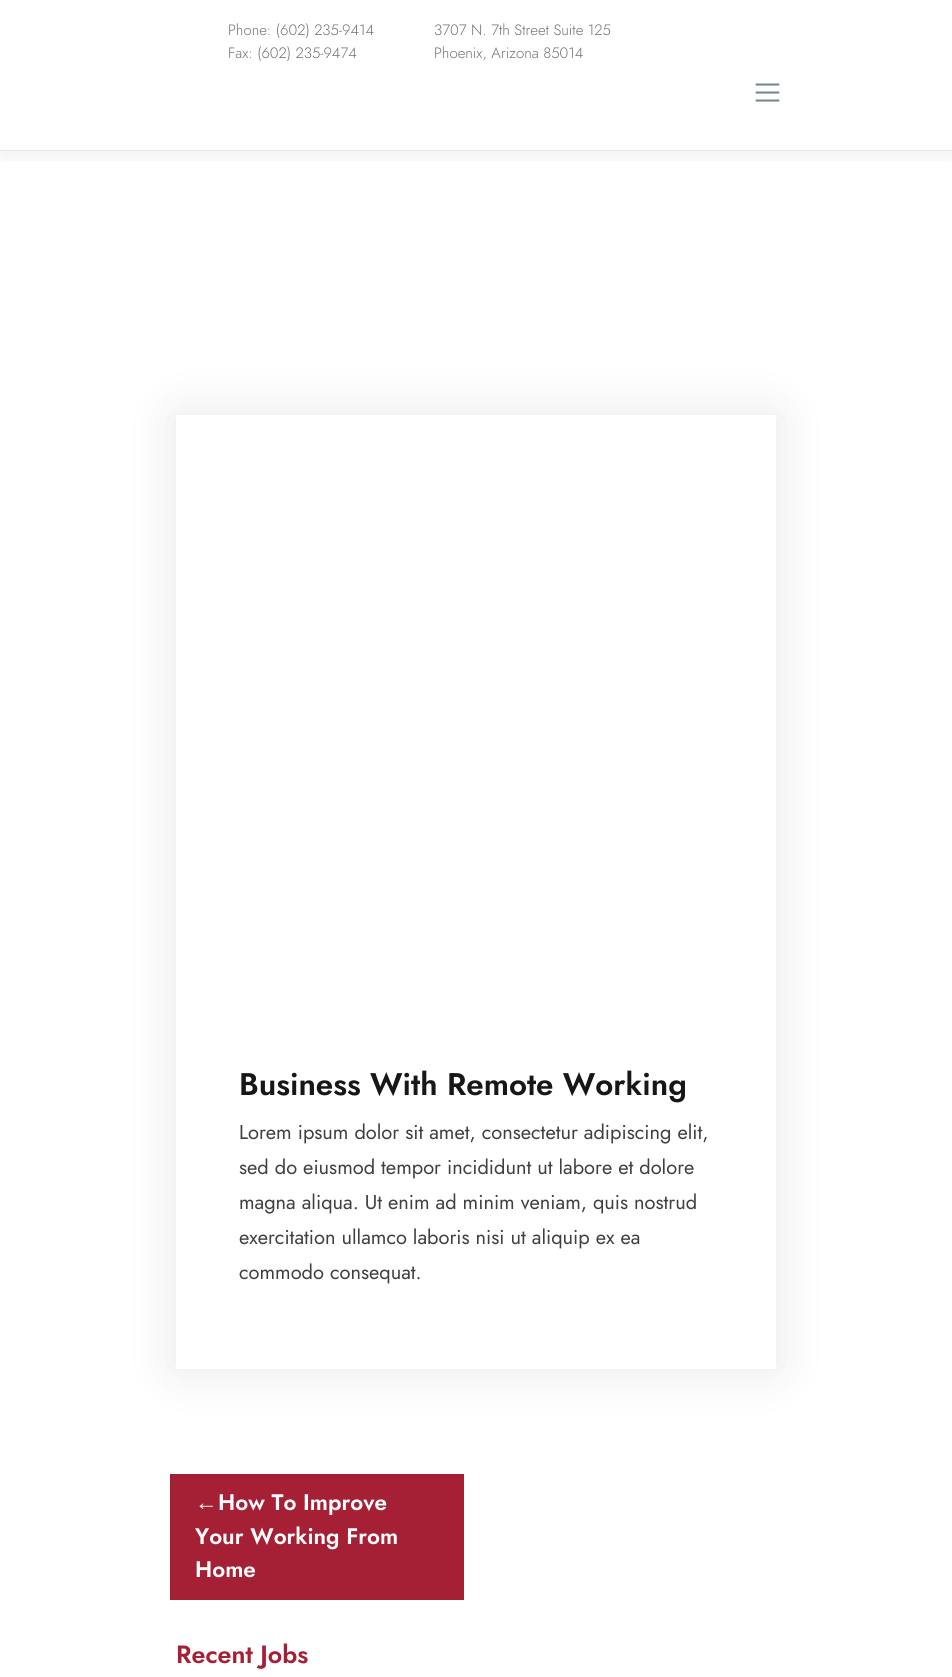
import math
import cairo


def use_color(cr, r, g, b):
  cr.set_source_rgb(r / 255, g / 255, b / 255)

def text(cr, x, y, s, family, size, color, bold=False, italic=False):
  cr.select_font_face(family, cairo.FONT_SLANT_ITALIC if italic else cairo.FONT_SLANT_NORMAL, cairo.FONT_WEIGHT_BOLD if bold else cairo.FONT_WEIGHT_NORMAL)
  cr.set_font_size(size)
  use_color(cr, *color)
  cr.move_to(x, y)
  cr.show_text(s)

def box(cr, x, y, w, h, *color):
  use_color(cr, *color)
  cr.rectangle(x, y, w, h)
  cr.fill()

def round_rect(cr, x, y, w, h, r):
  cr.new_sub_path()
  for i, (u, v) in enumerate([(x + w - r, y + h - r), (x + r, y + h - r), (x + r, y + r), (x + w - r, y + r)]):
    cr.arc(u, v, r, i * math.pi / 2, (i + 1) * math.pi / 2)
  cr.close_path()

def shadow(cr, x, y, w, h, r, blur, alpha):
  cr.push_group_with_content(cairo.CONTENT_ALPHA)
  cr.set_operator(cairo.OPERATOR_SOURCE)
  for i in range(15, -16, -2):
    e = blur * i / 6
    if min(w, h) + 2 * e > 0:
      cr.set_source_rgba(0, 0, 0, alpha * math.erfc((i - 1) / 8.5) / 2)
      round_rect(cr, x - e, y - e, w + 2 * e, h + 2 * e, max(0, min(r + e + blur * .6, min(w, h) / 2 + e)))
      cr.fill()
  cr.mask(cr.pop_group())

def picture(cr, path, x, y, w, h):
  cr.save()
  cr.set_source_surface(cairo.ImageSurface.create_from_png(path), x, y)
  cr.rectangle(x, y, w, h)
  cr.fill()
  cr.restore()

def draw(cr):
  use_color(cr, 255, 255, 255)
  cr.paint()
  cr.save()
  cr.rectangle(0, 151, 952, 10)
  cr.clip()
  use_color(cr, 0, 0, 0)
  shadow(cr, 0, 8, 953, 151, 0, 8, 0.05)
  cr.restore()
  box(cr, 0, 150, 952, 1, 230, 230, 230)
  picture(cr, "img_01.png", 755, 83, 25, 19)
  use_color(cr, 0, 0, 0)
  shadow(cr, 176, 415, 600, 954, 0, 24, 0.1)
  box(cr, 176, 415, 600, 954, 255, 255, 255)
  box(cr, 170, 1474, 294, 126, 166, 32, 53)
  text(cr, 228, 35, "Phone: (602) 235-9414", "Jost Light", 15, (114, 113, 113))
  text(cr, 228, 58, "Fax: (602) 235-9474", "Jost Light", 15, (114, 113, 113))
  text(cr, 434, 35, "3707 N. 7th Street Suite 125", "Jost Light", 15, (114, 113, 113))
  text(cr, 434, 58, "Phoenix, Arizona 85014", "Jost Light", 15, (114, 113, 113))
  text(cr, 239, 1095, "Business With Remote Working", "Jost SemiBold", 31.25, (23, 23, 23))
  text(cr, 239, 1139, "Lorem ipsum dolor sit amet, consectetur adipiscing elit,", "Jost", 20, (63, 63, 63))
  text(cr, 239, 1174, "sed do eiusmod tempor incididunt ut labore et dolore", "Jost", 20, (63, 63, 63))
  text(cr, 239, 1209, "magna aliqua. Ut enim ad minim veniam, quis nostrud", "Jost", 20, (63, 63, 63))
  text(cr, 239, 1244, "exercitation ullamco laboris nisi ut aliquip ex ea", "Jost", 20, (63, 63, 63))
  text(cr, 239, 1279, "commodo consequat.", "Jost", 20, (63, 63, 63))
  text(cr, 195, 1510, "←", "Liberation Sans", 22.5, (255, 255, 255), bold=True)
  text(cr, 218, 1510, "How To Improve", "Jost SemiBold", 22.5, (255, 255, 255))
  text(cr, 195, 1544, "Your Working From", "Jost SemiBold", 22.5, (255, 255, 255))
  text(cr, 195, 1577, "Home", "Jost SemiBold", 22.5, (255, 255, 255))
  text(cr, 176, 1663, "Recent Jobs", "Jost SemiBold", 25, (166, 32, 53))


surface = cairo.ImageSurface(cairo.FORMAT_RGB24, 952, 1677)
cr = cairo.Context(surface)
options = cairo.FontOptions()
options.set_hint_metrics(cairo.HINT_METRICS_OFF)
options.set_hint_style(cairo.HINT_STYLE_NONE)
cr.set_font_options(options)
cr.set_miter_limit(4)
draw(cr)
surface.write_to_png("out.png")
